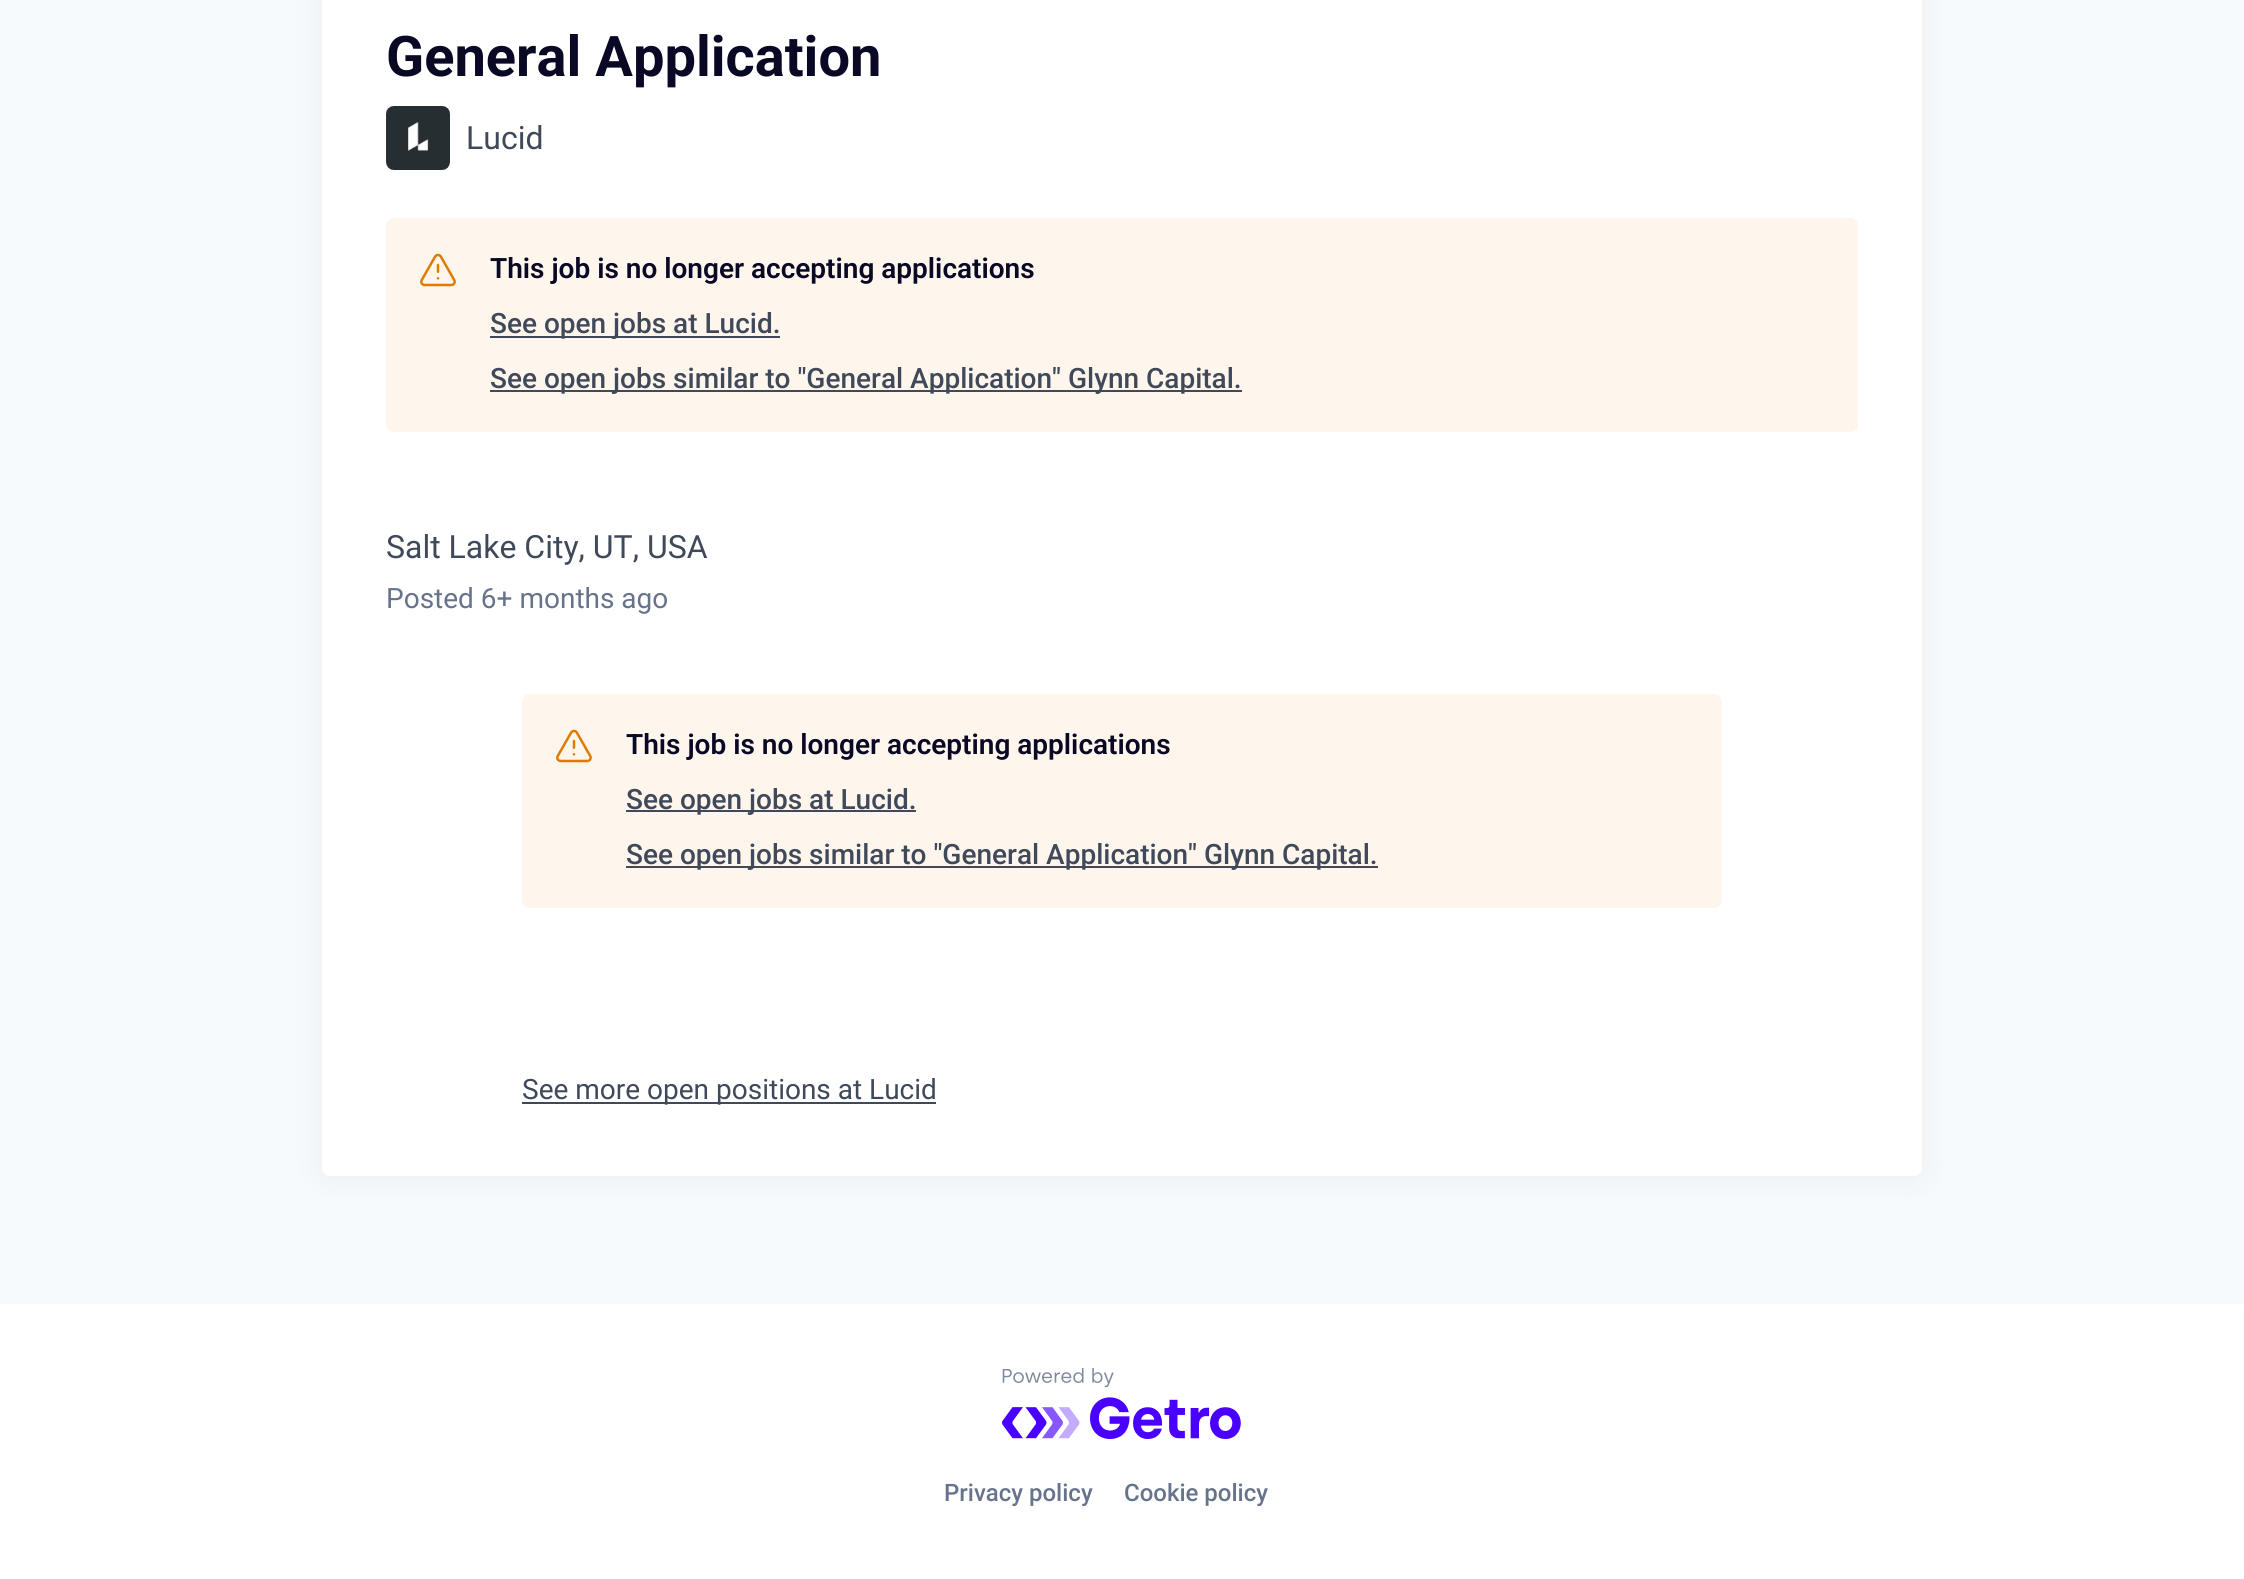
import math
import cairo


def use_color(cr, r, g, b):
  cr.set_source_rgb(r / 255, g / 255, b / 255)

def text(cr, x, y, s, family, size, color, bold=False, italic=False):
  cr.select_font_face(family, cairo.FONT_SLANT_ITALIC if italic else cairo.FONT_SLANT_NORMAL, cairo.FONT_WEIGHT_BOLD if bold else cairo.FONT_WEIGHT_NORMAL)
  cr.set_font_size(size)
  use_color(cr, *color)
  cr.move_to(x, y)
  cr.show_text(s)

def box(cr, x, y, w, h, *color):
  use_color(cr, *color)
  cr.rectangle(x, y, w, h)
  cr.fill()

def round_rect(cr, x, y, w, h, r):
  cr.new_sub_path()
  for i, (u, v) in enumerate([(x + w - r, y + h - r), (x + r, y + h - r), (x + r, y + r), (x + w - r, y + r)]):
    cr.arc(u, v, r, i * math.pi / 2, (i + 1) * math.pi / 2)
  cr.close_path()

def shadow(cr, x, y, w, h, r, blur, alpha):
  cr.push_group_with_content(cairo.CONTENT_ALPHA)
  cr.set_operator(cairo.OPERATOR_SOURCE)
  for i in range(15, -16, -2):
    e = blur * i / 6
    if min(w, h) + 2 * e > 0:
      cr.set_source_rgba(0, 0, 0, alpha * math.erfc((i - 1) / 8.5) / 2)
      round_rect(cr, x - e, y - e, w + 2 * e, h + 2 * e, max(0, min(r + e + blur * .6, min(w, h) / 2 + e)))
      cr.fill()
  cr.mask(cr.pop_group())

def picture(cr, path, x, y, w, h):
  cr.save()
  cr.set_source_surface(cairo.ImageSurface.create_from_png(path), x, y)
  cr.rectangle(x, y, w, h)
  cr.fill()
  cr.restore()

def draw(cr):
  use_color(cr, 247, 250, 252)
  cr.paint()
  use_color(cr, 27, 36, 50)
  shadow(cr, 322, -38, 1600, 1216, 8, 16, 0.06)
  use_color(cr, 255, 255, 255)
  round_rect(cr, 322, -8, 1600, 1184, 8)
  cr.fill()
  picture(cr, "img_01.png", 386, 106, 64, 64)
  use_color(cr, 254, 245, 236)
  round_rect(cr, 386, 218, 1472, 214, 8)
  cr.fill()
  picture(cr, "img_02.png", 420, 253, 36, 34)
  box(cr, 490, 336, 290, 2, 63, 73, 90)
  box(cr, 490, 390, 752, 2, 63, 73, 90)
  use_color(cr, 254, 245, 236)
  round_rect(cr, 522, 694, 1200, 214, 8)
  cr.fill()
  picture(cr, "img_02.png", 556, 729, 36, 34)
  box(cr, 626, 810, 290, 2, 63, 73, 90)
  box(cr, 626, 866, 752, 2, 63, 73, 90)
  box(cr, 522, 1102, 414, 2, 63, 73, 90)
  box(cr, 0, 1304, 2244, 275, 255, 255, 255)
  picture(cr, "img_03.png", 1002, 1368, 239, 71)
  text(cr, 386, 76, "General Application", "Roboto", 56, (9, 9, 37), bold=True)
  text(cr, 466, 149, "Lucid", "Roboto", 32, (63, 73, 90))
  text(cr, 490, 278, "This job is no longer accepting applications", "Roboto SemiBold", 28, (9, 9, 37))
  text(cr, 490, 333, "See open jobs at Lucid.", "Roboto Medium", 28, (63, 73, 90))
  text(cr, 490, 388, "See open jobs similar to \"General Application\" Glynn Capital.", "Roboto Medium", 28, (63, 73, 90))
  text(cr, 386, 558, "Salt Lake City, UT, USA", "Roboto", 32, (63, 73, 90))
  text(cr, 386, 608, "Posted 6+ months ago", "Roboto", 28, (103, 115, 139))
  text(cr, 626, 754, "This job is no longer accepting applications", "Roboto SemiBold", 28, (9, 9, 37))
  text(cr, 626, 809, "See open jobs at Lucid.", "Roboto Medium", 28, (63, 73, 90))
  text(cr, 626, 864, "See open jobs similar to \"General Application\" Glynn Capital.", "Roboto Medium", 28, (63, 73, 90))
  text(cr, 522, 1099, "See more open positions at Lucid", "Roboto", 28, (63, 73, 90))
  text(cr, 944, 1501, "Privacy policy", "Roboto Medium", 24, (103, 115, 139))
  text(cr, 1124, 1501, "Cookie policy", "Roboto Medium", 24, (103, 115, 139))


surface = cairo.ImageSurface(cairo.FORMAT_RGB24, 2244, 1579)
cr = cairo.Context(surface)
options = cairo.FontOptions()
options.set_hint_metrics(cairo.HINT_METRICS_OFF)
options.set_hint_style(cairo.HINT_STYLE_NONE)
cr.set_font_options(options)
cr.set_miter_limit(4)
draw(cr)
surface.write_to_png("out.png")
